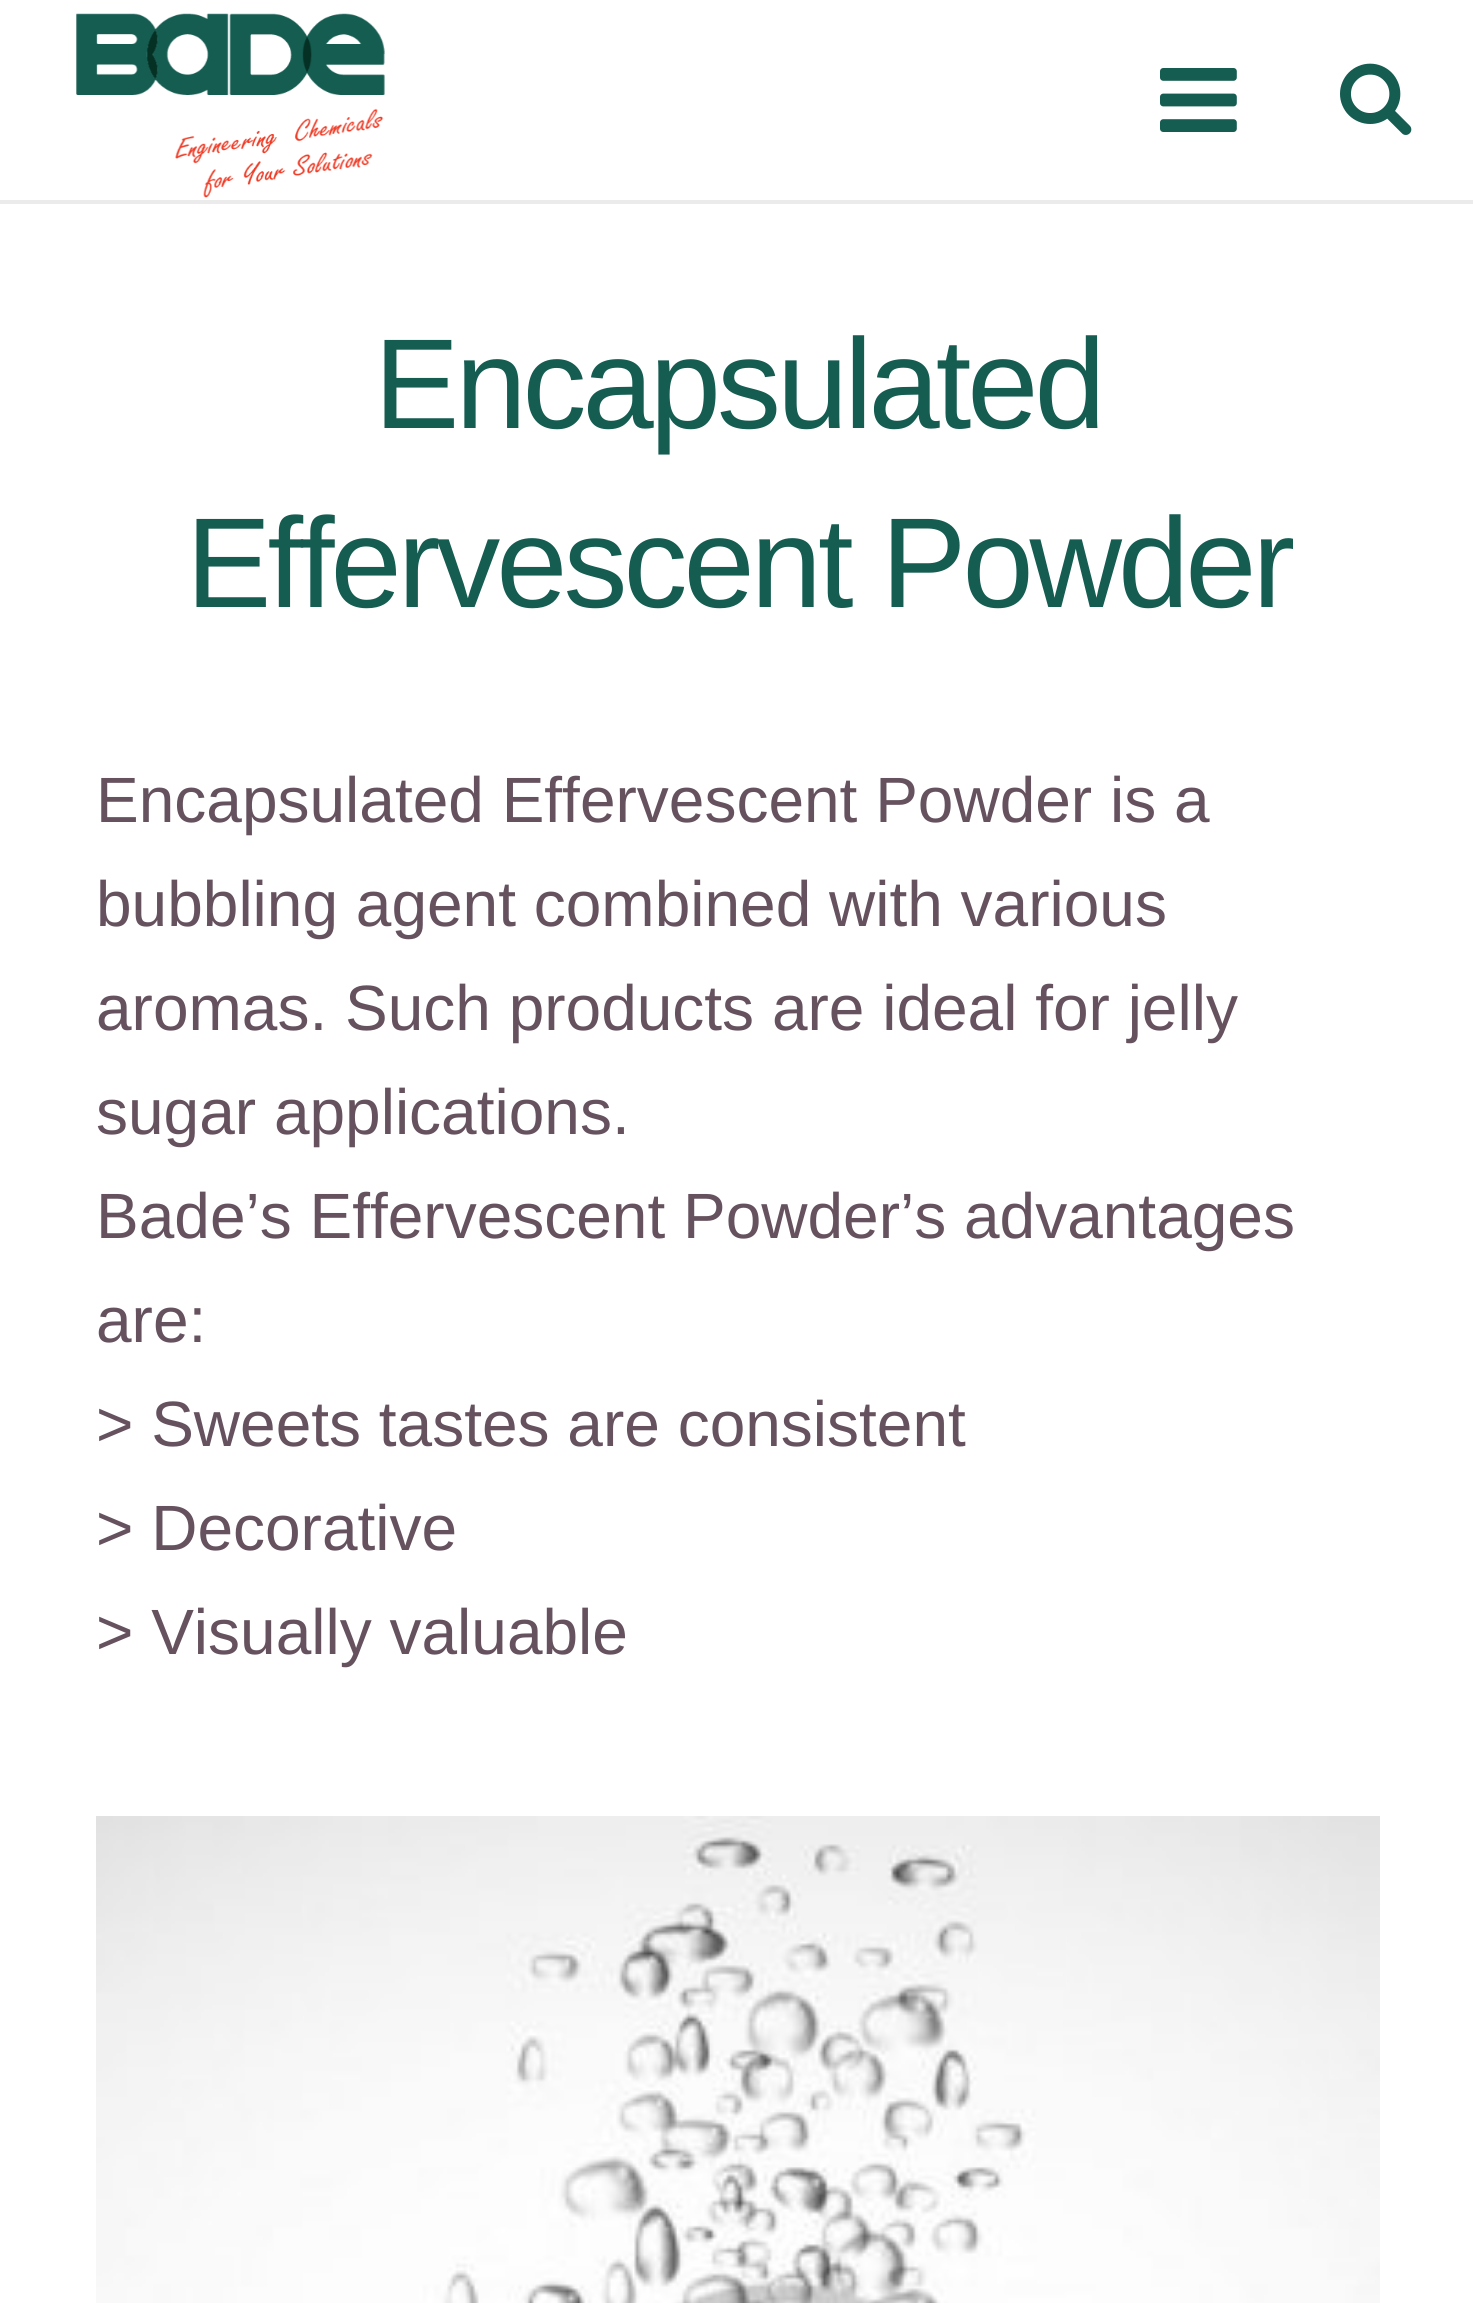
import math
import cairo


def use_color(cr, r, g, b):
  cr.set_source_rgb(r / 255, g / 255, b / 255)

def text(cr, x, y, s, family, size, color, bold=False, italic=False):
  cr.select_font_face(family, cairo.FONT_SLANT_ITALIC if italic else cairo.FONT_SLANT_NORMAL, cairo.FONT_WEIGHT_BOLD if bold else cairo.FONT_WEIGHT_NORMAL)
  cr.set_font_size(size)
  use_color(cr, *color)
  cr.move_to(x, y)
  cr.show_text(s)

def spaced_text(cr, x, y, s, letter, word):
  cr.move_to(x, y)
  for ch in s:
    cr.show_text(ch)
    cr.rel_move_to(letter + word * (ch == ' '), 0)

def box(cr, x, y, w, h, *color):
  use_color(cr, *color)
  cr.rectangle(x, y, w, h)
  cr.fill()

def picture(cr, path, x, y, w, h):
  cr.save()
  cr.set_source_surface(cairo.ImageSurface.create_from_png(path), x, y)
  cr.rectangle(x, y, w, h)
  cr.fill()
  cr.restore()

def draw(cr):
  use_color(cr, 255, 255, 255)
  cr.paint()
  box(cr, 0, 200, 1473, 4, 235, 235, 235)
  picture(cr, "img_01.png", 76, 13, 309, 185)
  picture(cr, "img_02.png", 1160, 68, 77, 64)
  picture(cr, "img_03.png", 1340, 63, 72, 72)
  picture(cr, "img_04.png", 96, 1816, 1284, 487)
  cr.select_font_face("Liberation Sans")
  cr.set_font_size(128)
  use_color(cr, 21, 92, 81)
  spaced_text(cr, 374, 428, "Encapsulated", -4, 0)
  spaced_text(cr, 186, 607, "Effervescent Powder", -4, 0)
  text(cr, 96, 822, "Encapsulated Effervescent Powder is a", "Liberation Sans", 64, (102, 82, 95))
  text(cr, 96, 926, "bubbling agent combined with various", "Liberation Sans", 64, (102, 82, 95))
  text(cr, 96, 1030, "aromas. Such products are ideal for jelly", "Liberation Sans", 64, (102, 82, 95))
  text(cr, 96, 1134, "sugar applications.", "Liberation Sans", 64, (102, 82, 95))
  text(cr, 96, 1238, "Bade’s Effervescent Powder’s advantages", "Liberation Sans", 64, (102, 82, 95))
  text(cr, 96, 1342, "are:", "Liberation Sans", 64, (102, 82, 95))
  text(cr, 96, 1446, "> Sweets tastes are consistent", "Liberation Sans", 64, (102, 82, 95))
  text(cr, 96, 1550, "> Decorative", "Liberation Sans", 64, (102, 82, 95))
  text(cr, 96, 1654, "> Visually valuable", "Liberation Sans", 64, (102, 82, 95))


surface = cairo.ImageSurface(cairo.FORMAT_RGB24, 1473, 2303)
cr = cairo.Context(surface)
options = cairo.FontOptions()
options.set_hint_metrics(cairo.HINT_METRICS_OFF)
options.set_hint_style(cairo.HINT_STYLE_NONE)
cr.set_font_options(options)
cr.set_miter_limit(4)
draw(cr)
surface.write_to_png("out.png")
